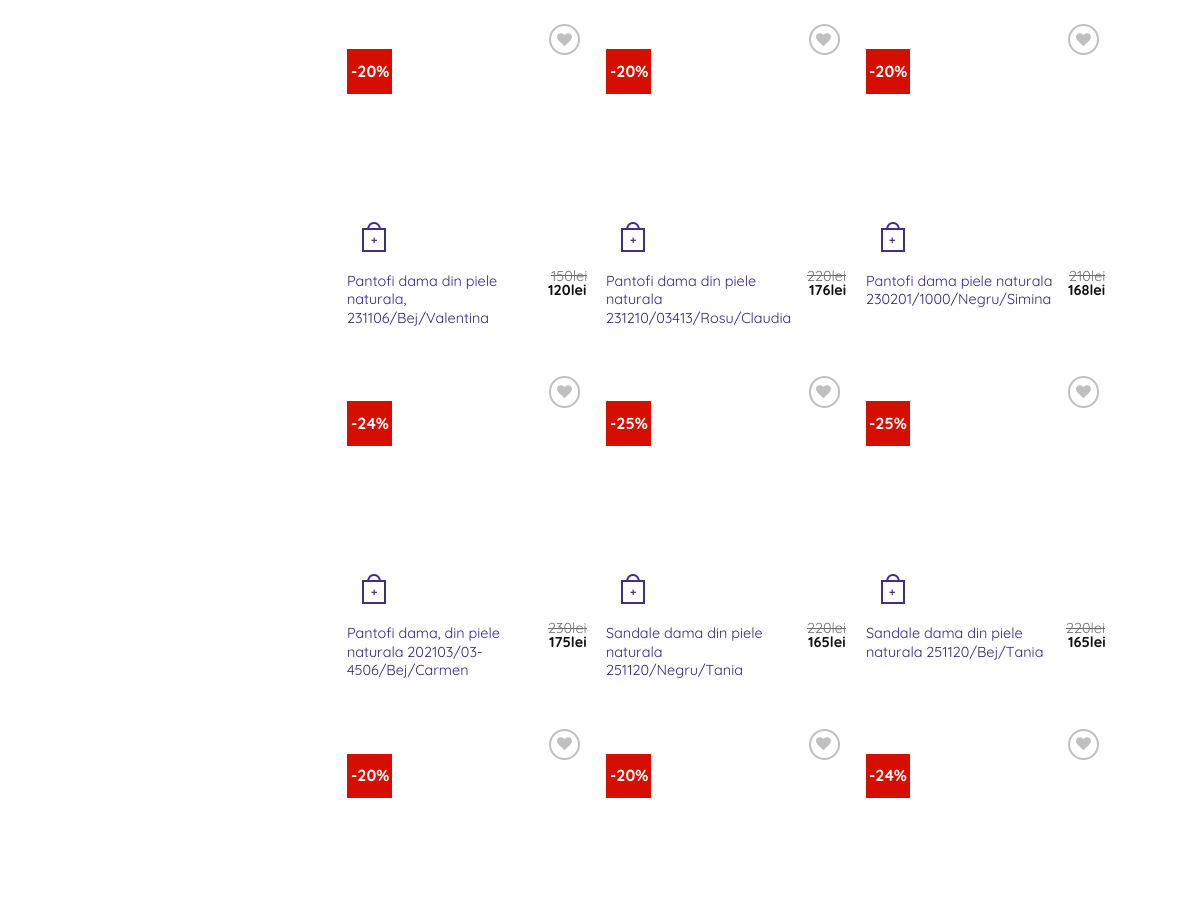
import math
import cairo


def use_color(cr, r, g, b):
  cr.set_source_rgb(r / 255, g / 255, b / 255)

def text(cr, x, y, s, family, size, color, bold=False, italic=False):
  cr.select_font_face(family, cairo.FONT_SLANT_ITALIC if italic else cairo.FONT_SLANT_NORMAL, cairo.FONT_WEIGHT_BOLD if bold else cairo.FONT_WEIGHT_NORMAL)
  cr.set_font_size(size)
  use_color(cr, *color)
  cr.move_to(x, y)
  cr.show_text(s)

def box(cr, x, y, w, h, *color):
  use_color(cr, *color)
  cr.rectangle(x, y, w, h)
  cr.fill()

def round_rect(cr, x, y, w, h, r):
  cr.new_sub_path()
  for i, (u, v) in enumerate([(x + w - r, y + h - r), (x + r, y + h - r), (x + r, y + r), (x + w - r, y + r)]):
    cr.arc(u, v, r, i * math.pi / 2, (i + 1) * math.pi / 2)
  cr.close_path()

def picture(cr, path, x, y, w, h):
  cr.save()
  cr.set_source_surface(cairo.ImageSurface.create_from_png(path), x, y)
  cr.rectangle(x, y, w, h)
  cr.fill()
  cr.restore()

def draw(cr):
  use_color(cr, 255, 255, 255)
  cr.paint()
  box(cr, 347, 49, 45, 45, 214, 14, 0)
  cr.arc(564.5, 39.5, 14.5, 0, 2 * math.pi)
  use_color(cr, 192, 192, 192)
  cr.stroke()
  picture(cr, "img_01.png", 557, 33, 15, 13)
  cr.rectangle(363, 229, 22, 22)
  use_color(cr, 64, 45, 133)
  cr.stroke()
  cr.set_fill_rule(cairo.FILL_RULE_EVEN_ODD)
  cr.new_path()
  cr.move_to(374, 222)
  cr.curve_to(378.5, 222, 381, 226, 381, 230)
  cr.line_to(367, 230)
  cr.curve_to(367, 226, 369.5, 222, 374, 222)
  cr.close_path()
  cr.move_to(374, 224)
  cr.curve_to(377.5, 224, 379, 227, 379, 230)
  cr.line_to(369, 230)
  cr.curve_to(369, 227, 370.5, 224, 374, 224)
  cr.close_path()
  cr.fill()
  box(cr, 606, 49, 45, 45, 214, 14, 0)
  cr.arc(824.5, 39.5, 14.5, 0, 2 * math.pi)
  use_color(cr, 192, 192, 192)
  cr.stroke()
  picture(cr, "img_01.png", 816, 33, 15, 13)
  cr.rectangle(622, 229, 22, 22)
  use_color(cr, 64, 45, 133)
  cr.stroke()
  cr.new_path()
  cr.move_to(633, 222)
  cr.curve_to(637.5, 222, 640, 226, 640, 230)
  cr.line_to(626, 230)
  cr.curve_to(626, 226, 628.5, 222, 633, 222)
  cr.close_path()
  cr.move_to(633, 224)
  cr.curve_to(636.5, 224, 638, 227, 638, 230)
  cr.line_to(628, 230)
  cr.curve_to(628, 227, 629.5, 224, 633, 224)
  cr.close_path()
  cr.fill()
  box(cr, 866, 49, 44, 45, 214, 14, 0)
  cr.arc(1083.5, 39.5, 14.5, 0, 2 * math.pi)
  use_color(cr, 192, 192, 192)
  cr.stroke()
  picture(cr, "img_01.png", 1076, 33, 15, 13)
  cr.rectangle(882, 229, 22, 22)
  use_color(cr, 64, 45, 133)
  cr.stroke()
  cr.new_path()
  cr.move_to(893, 222)
  cr.curve_to(897.5, 222, 900, 226, 900, 230)
  cr.line_to(886, 230)
  cr.curve_to(886, 226, 888.5, 222, 893, 222)
  cr.close_path()
  cr.move_to(893, 224)
  cr.curve_to(896.5, 224, 898, 227, 898, 230)
  cr.line_to(888, 230)
  cr.curve_to(888, 227, 889.5, 224, 893, 224)
  cr.close_path()
  cr.fill()
  box(cr, 347, 401, 45, 45, 214, 14, 0)
  round_rect(cr, 550, 377, 29, 30, 14.5)
  use_color(cr, 192, 192, 192)
  cr.stroke()
  picture(cr, "img_01.png", 557, 385, 15, 13)
  cr.rectangle(363, 581, 22, 22)
  use_color(cr, 64, 45, 133)
  cr.stroke()
  cr.new_path()
  cr.move_to(374, 574)
  cr.curve_to(378.5, 574, 381, 578, 381, 582)
  cr.line_to(367, 582)
  cr.curve_to(367, 578, 369.5, 574, 374, 574)
  cr.close_path()
  cr.move_to(374, 576)
  cr.curve_to(377.5, 576, 379, 579, 379, 582)
  cr.line_to(369, 582)
  cr.curve_to(369, 579, 370.5, 576, 374, 576)
  cr.close_path()
  cr.fill()
  box(cr, 606, 401, 45, 45, 214, 14, 0)
  round_rect(cr, 810, 377, 29, 30, 14.5)
  use_color(cr, 192, 192, 192)
  cr.stroke()
  picture(cr, "img_01.png", 816, 385, 15, 13)
  cr.rectangle(622, 581, 22, 22)
  use_color(cr, 64, 45, 133)
  cr.stroke()
  cr.new_path()
  cr.move_to(633, 574)
  cr.curve_to(637.5, 574, 640, 578, 640, 582)
  cr.line_to(626, 582)
  cr.curve_to(626, 578, 628.5, 574, 633, 574)
  cr.close_path()
  cr.move_to(633, 576)
  cr.curve_to(636.5, 576, 638, 579, 638, 582)
  cr.line_to(628, 582)
  cr.curve_to(628, 579, 629.5, 576, 633, 576)
  cr.close_path()
  cr.fill()
  box(cr, 866, 401, 44, 45, 214, 14, 0)
  round_rect(cr, 1069, 377, 29, 30, 14.5)
  use_color(cr, 192, 192, 192)
  cr.stroke()
  picture(cr, "img_01.png", 1076, 385, 15, 13)
  cr.rectangle(882, 581, 22, 22)
  use_color(cr, 64, 45, 133)
  cr.stroke()
  cr.new_path()
  cr.move_to(893, 574)
  cr.curve_to(897.5, 574, 900, 578, 900, 582)
  cr.line_to(886, 582)
  cr.curve_to(886, 578, 888.5, 574, 893, 574)
  cr.close_path()
  cr.move_to(893, 576)
  cr.curve_to(896.5, 576, 898, 579, 898, 582)
  cr.line_to(888, 582)
  cr.curve_to(888, 579, 889.5, 576, 893, 576)
  cr.close_path()
  cr.fill()
  cr.arc(564.5, 744.5, 14.5, 0, 2 * math.pi)
  use_color(cr, 192, 192, 192)
  cr.stroke()
  picture(cr, "img_01.png", 557, 737, 15, 13)
  box(cr, 347, 754, 45, 44, 214, 14, 0)
  cr.arc(824.5, 744.5, 14.5, 0, 2 * math.pi)
  use_color(cr, 192, 192, 192)
  cr.stroke()
  picture(cr, "img_01.png", 816, 737, 15, 13)
  box(cr, 606, 754, 45, 44, 214, 14, 0)
  cr.arc(1083.5, 744.5, 14.5, 0, 2 * math.pi)
  use_color(cr, 192, 192, 192)
  cr.stroke()
  picture(cr, "img_01.png", 1076, 737, 15, 13)
  box(cr, 866, 754, 44, 44, 214, 14, 0)
  text(cr, 351, 77, "-20%", "Quicksand", 16, (255, 255, 255), bold=True)
  text(cr, 371, 244, "+", "Liberation Sans", 11, (64, 45, 133), bold=True)
  text(cr, 347, 286, "Pantofi dama din piele", "Quicksand", 14.4, (47, 36, 131))
  text(cr, 347, 304, "naturala,", "Quicksand", 14.4, (47, 36, 131))
  text(cr, 347, 323, "231106/Bej/Valentina", "Quicksand", 14.4, (47, 36, 131))
  text(cr, 551, 281, "150lei", "Quicksand", 14.4, (112, 112, 112))
  box(cr, 551, 275, 36, 1, 108, 108, 108)
  text(cr, 548, 295, "120lei", "Quicksand", 14.4, (17, 17, 17), bold=True)
  text(cr, 610, 77, "-20%", "Quicksand", 16, (255, 255, 255), bold=True)
  text(cr, 630, 244, "+", "Liberation Sans", 11, (64, 45, 133), bold=True)
  text(cr, 606, 286, "Pantofi dama din piele", "Quicksand", 14.4, (47, 36, 131))
  text(cr, 606, 304, "naturala", "Quicksand", 14.4, (47, 36, 131))
  text(cr, 606, 323, "231210/03413/Rosu/Claudia", "Quicksand", 14.4, (47, 36, 131))
  text(cr, 807, 281, "220lei", "Quicksand", 14.4, (112, 112, 112))
  box(cr, 807, 275, 39, 1, 108, 108, 108)
  text(cr, 809, 295, "176lei", "Quicksand", 14.4, (17, 17, 17), bold=True)
  text(cr, 869, 77, "-20%", "Quicksand", 16, (255, 255, 255), bold=True)
  text(cr, 889, 244, "+", "Liberation Sans", 11, (64, 45, 133), bold=True)
  text(cr, 866, 286, "Pantofi dama piele naturala", "Quicksand", 14.4, (47, 36, 131))
  text(cr, 866, 304, "230201/1000/Negru/Simina", "Quicksand", 14.4, (47, 36, 131))
  text(cr, 1069, 281, "210lei", "Quicksand", 14.4, (112, 112, 112))
  box(cr, 1069, 275, 36, 1, 108, 108, 108)
  text(cr, 1068, 295, "168lei", "Quicksand", 14.4, (17, 17, 17), bold=True)
  text(cr, 351, 429, "-24%", "Quicksand", 16, (255, 255, 255), bold=True)
  text(cr, 371, 596, "+", "Liberation Sans", 11, (64, 45, 133), bold=True)
  text(cr, 347, 638, "Pantofi dama, din piele", "Quicksand", 14.4, (47, 36, 131))
  text(cr, 347, 657, "naturala 202103/03-", "Quicksand", 14.4, (47, 36, 131))
  text(cr, 347, 675, "4506/Bej/Carmen", "Quicksand", 14.4, (47, 36, 131))
  text(cr, 548, 633, "230lei", "Quicksand", 14.4, (112, 112, 112))
  box(cr, 548, 628, 39, 1, 108, 108, 108)
  text(cr, 549, 647, "175lei", "Quicksand", 14.4, (17, 17, 17), bold=True)
  text(cr, 610, 429, "-25%", "Quicksand", 16, (255, 255, 255), bold=True)
  text(cr, 630, 596, "+", "Liberation Sans", 11, (64, 45, 133), bold=True)
  text(cr, 606, 638, "Sandale dama din piele", "Quicksand", 14.4, (47, 36, 131))
  text(cr, 606, 657, "naturala", "Quicksand", 14.4, (47, 36, 131))
  text(cr, 606, 675, "251120/Negru/Tania", "Quicksand", 14.4, (47, 36, 131))
  text(cr, 807, 633, "220lei", "Quicksand", 14.4, (112, 112, 112))
  box(cr, 807, 628, 39, 1, 108, 108, 108)
  text(cr, 808, 647, "165lei", "Quicksand", 14.4, (17, 17, 17), bold=True)
  text(cr, 869, 429, "-25%", "Quicksand", 16, (255, 255, 255), bold=True)
  text(cr, 889, 596, "+", "Liberation Sans", 11, (64, 45, 133), bold=True)
  text(cr, 866, 638, "Sandale dama din piele", "Quicksand", 14.4, (47, 36, 131))
  text(cr, 866, 657, "naturala 251120/Bej/Tania", "Quicksand", 14.4, (47, 36, 131))
  text(cr, 1066, 633, "220lei", "Quicksand", 14.4, (112, 112, 112))
  box(cr, 1066, 628, 39, 1, 108, 108, 108)
  text(cr, 1068, 647, "165lei", "Quicksand", 14.4, (17, 17, 17), bold=True)
  text(cr, 351, 781, "-20%", "Quicksand", 16, (255, 255, 255), bold=True)
  text(cr, 610, 781, "-20%", "Quicksand", 16, (255, 255, 255), bold=True)
  text(cr, 869, 781, "-24%", "Quicksand", 16, (255, 255, 255), bold=True)


surface = cairo.ImageSurface(cairo.FORMAT_RGB24, 1190, 912)
cr = cairo.Context(surface)
options = cairo.FontOptions()
options.set_hint_metrics(cairo.HINT_METRICS_OFF)
options.set_hint_style(cairo.HINT_STYLE_NONE)
cr.set_font_options(options)
cr.set_miter_limit(4)
draw(cr)
surface.write_to_png("out.png")
